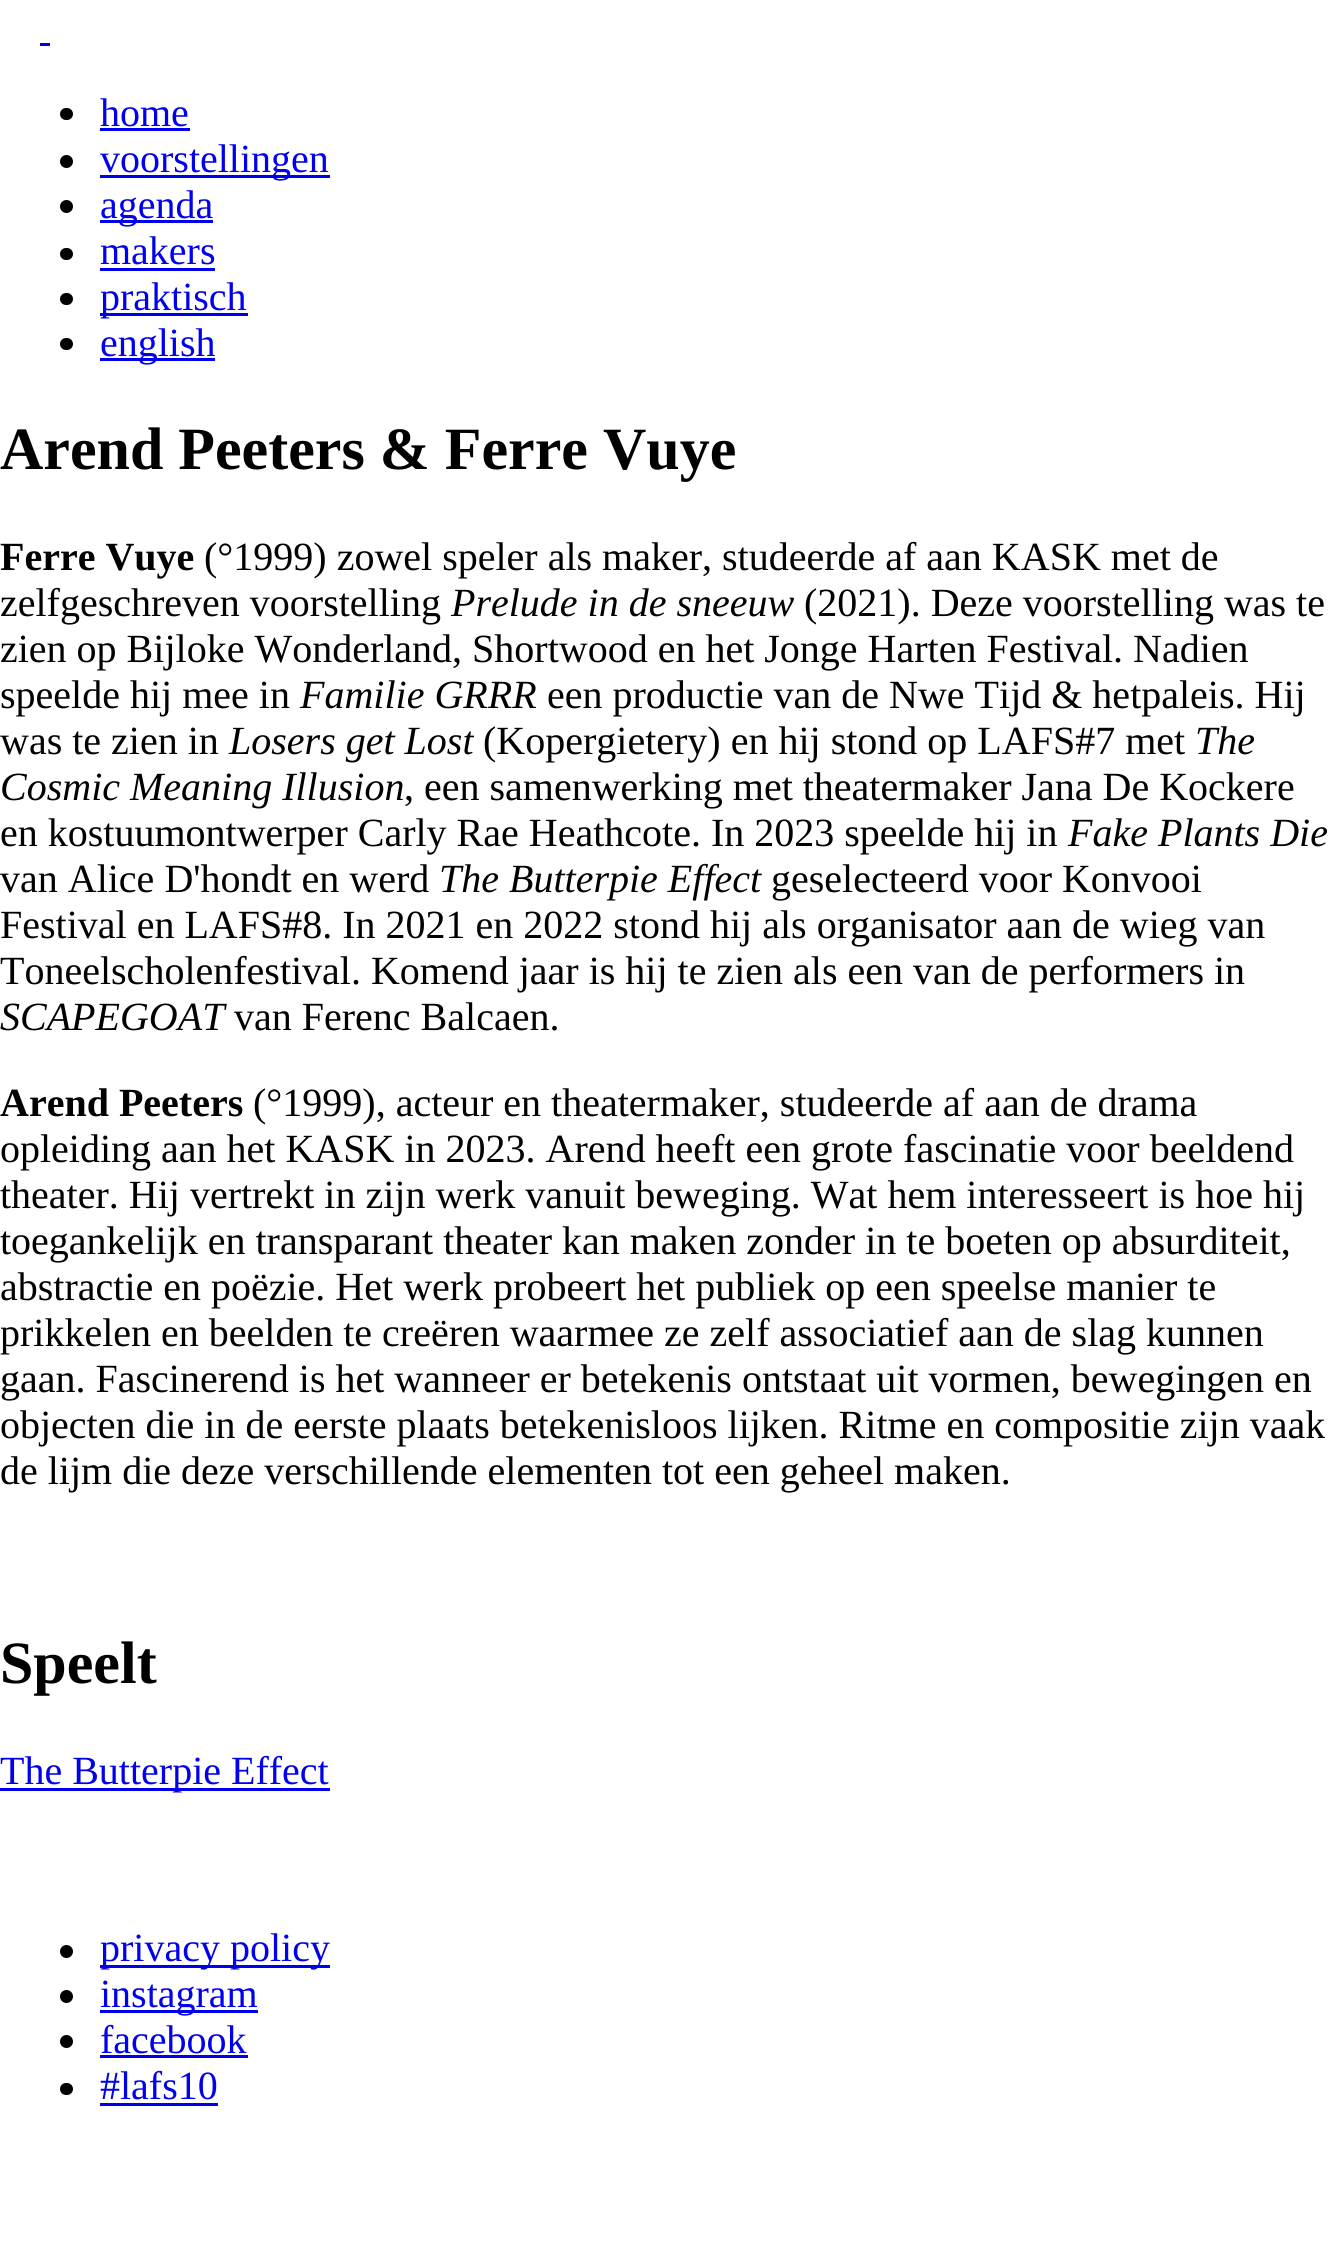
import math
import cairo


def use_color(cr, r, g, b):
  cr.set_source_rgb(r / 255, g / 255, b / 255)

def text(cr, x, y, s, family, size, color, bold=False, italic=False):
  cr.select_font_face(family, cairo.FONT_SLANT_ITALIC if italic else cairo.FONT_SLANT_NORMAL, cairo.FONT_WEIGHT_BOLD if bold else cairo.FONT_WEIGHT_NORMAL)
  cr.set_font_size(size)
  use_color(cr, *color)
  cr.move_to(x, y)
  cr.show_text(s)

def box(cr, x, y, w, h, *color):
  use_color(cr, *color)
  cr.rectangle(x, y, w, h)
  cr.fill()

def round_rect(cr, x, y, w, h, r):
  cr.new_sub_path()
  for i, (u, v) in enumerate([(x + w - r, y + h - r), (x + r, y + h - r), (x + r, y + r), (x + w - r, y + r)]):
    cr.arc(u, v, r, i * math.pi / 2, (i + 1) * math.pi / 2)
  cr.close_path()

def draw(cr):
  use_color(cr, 255, 255, 255)
  cr.paint()
  box(cr, 40, 43, 10, 3, 0, 0, 238)
  use_color(cr, 0, 0, 0)
  round_rect(cr, 60, 108, 13, 12, 6)
  cr.fill()
  box(cr, 100, 128, 90, 3, 0, 0, 238)
  use_color(cr, 0, 0, 0)
  cr.arc(66.5, 161.5, 6.5, 0, 2 * math.pi)
  cr.fill()
  box(cr, 100, 175, 230, 3, 0, 0, 238)
  use_color(cr, 0, 0, 0)
  cr.arc(66.5, 206.5, 6.5, 0, 2 * math.pi)
  cr.fill()
  box(cr, 100, 220, 113, 3, 0, 0, 238)
  use_color(cr, 0, 0, 0)
  round_rect(cr, 60, 248, 13, 12, 6)
  cr.fill()
  box(cr, 100, 268, 115, 3, 0, 0, 238)
  use_color(cr, 0, 0, 0)
  round_rect(cr, 60, 293, 13, 12, 6)
  cr.fill()
  box(cr, 100, 313, 148, 3, 0, 0, 238)
  use_color(cr, 0, 0, 0)
  round_rect(cr, 60, 338, 13, 12, 6)
  cr.fill()
  box(cr, 100, 358, 115, 3, 0, 0, 238)
  box(cr, 0, 1788, 330, 3, 0, 0, 238)
  use_color(cr, 0, 0, 0)
  cr.arc(66.5, 1951.5, 6.5, 0, 2 * math.pi)
  cr.fill()
  box(cr, 100, 1965, 230, 3, 0, 0, 238)
  use_color(cr, 0, 0, 0)
  cr.arc(66.5, 1996.5, 6.5, 0, 2 * math.pi)
  cr.fill()
  box(cr, 100, 2010, 158, 3, 0, 0, 238)
  use_color(cr, 0, 0, 0)
  cr.arc(66.5, 2041.5, 6.5, 0, 2 * math.pi)
  cr.fill()
  box(cr, 100, 2055, 148, 3, 0, 0, 238)
  use_color(cr, 0, 0, 0)
  round_rect(cr, 60, 2083, 13, 12, 6)
  cr.fill()
  box(cr, 100, 2103, 118, 3, 0, 0, 238)
  text(cr, 100, 126, "home", "Liberation Serif", 40, (0, 0, 238))
  text(cr, 100, 172, "voorstellingen", "Liberation Serif", 40, (0, 0, 238))
  text(cr, 100, 218, "agenda", "Liberation Serif", 40, (0, 0, 238))
  text(cr, 100, 264, "makers", "Liberation Serif", 40, (0, 0, 238))
  text(cr, 100, 310, "praktisch", "Liberation Serif", 40, (0, 0, 238))
  text(cr, 100, 356, "english", "Liberation Serif", 40, (0, 0, 238))
  text(cr, 0, 469, "Arend Peeters & Ferre Vuye", "Liberation Serif", 60, (0, 0, 0), bold=True)
  text(cr, 0, 570, "Ferre Vuye", "Liberation Serif", 40, (0, 0, 0), bold=True)
  text(cr, 204, 570, "(°1999) zowel speler als maker, studeerde af aan KASK met de", "Liberation Serif", 40, (0, 0, 0))
  text(cr, 0, 616, "zelfgeschreven voorstelling", "Liberation Serif", 40, (0, 0, 0))
  text(cr, 451, 616, "Prelude in de sneeuw", "Liberation Serif", 40, (0, 0, 0), italic=True)
  text(cr, 804, 616, "(2021). Deze voorstelling was te", "Liberation Serif", 40, (0, 0, 0))
  text(cr, 0, 662, "zien op Bijloke Wonderland, Shortwood en het Jonge Harten Festival. Nadien", "Liberation Serif", 40, (0, 0, 0))
  text(cr, 0, 708, "speelde hij mee in", "Liberation Serif", 40, (0, 0, 0))
  text(cr, 300, 708, "Familie GRRR", "Liberation Serif", 40, (0, 0, 0), italic=True)
  text(cr, 547, 708, "een productie van de Nwe Tijd & hetpaleis. Hij", "Liberation Serif", 40, (0, 0, 0))
  text(cr, 0, 754, "was te zien in", "Liberation Serif", 40, (0, 0, 0))
  text(cr, 229, 754, "Losers get Lost", "Liberation Serif", 40, (0, 0, 0), italic=True)
  text(cr, 483, 754, "(Kopergietery) en hij stond op LAFS#7 met", "Liberation Serif", 40, (0, 0, 0))
  text(cr, 1195, 754, "The", "Liberation Serif", 40, (0, 0, 0), italic=True)
  text(cr, 0, 800, "Cosmic Meaning Illusion", "Liberation Serif", 40, (0, 0, 0), italic=True)
  text(cr, 404, 800, ", een samenwerking met theatermaker Jana De Kockere", "Liberation Serif", 40, (0, 0, 0))
  text(cr, 0, 846, "en kostuumontwerper Carly Rae Heathcote. In 2023 speelde hij in", "Liberation Serif", 40, (0, 0, 0))
  text(cr, 1068, 846, "Fake Plants Die", "Liberation Serif", 40, (0, 0, 0), italic=True)
  text(cr, 0, 892, "van Alice D'hondt en werd", "Liberation Serif", 40, (0, 0, 0))
  text(cr, 439, 892, "The Butterpie Effect", "Liberation Serif", 40, (0, 0, 0), italic=True)
  text(cr, 771, 892, "geselecteerd voor Konvooi", "Liberation Serif", 40, (0, 0, 0))
  text(cr, 0, 938, "Festival en LAFS#8. In 2021 en 2022 stond hij als organisator aan de wieg van", "Liberation Serif", 40, (0, 0, 0))
  text(cr, 0, 984, "Toneelscholenfestival. Komend jaar is hij te zien als een van de performers in", "Liberation Serif", 40, (0, 0, 0))
  text(cr, 0, 1030, "SCAPEGOAT", "Liberation Serif", 40, (0, 0, 0), italic=True)
  text(cr, 234, 1030, "van Ferenc Balcaen.", "Liberation Serif", 40, (0, 0, 0))
  text(cr, 0, 1116, "Arend Peeters", "Liberation Serif", 40, (0, 0, 0), bold=True)
  text(cr, 253, 1116, "(°1999), acteur en theatermaker, studeerde af aan de drama", "Liberation Serif", 40, (0, 0, 0))
  text(cr, 0, 1162, "opleiding aan het KASK in 2023. Arend heeft een grote fascinatie voor beeldend", "Liberation Serif", 40, (0, 0, 0))
  text(cr, 0, 1208, "theater. Hij vertrekt in zijn werk vanuit beweging. Wat hem interesseert is hoe hij", "Liberation Serif", 40, (0, 0, 0))
  text(cr, 0, 1254, "toegankelijk en transparant theater kan maken zonder in te boeten op absurditeit,", "Liberation Serif", 40, (0, 0, 0))
  text(cr, 0, 1300, "abstractie en poëzie. Het werk probeert het publiek op een speelse manier te", "Liberation Serif", 40, (0, 0, 0))
  text(cr, 0, 1346, "prikkelen en beelden te creëren waarmee ze zelf associatief aan de slag kunnen", "Liberation Serif", 40, (0, 0, 0))
  text(cr, 0, 1392, "gaan. Fascinerend is het wanneer er betekenis ontstaat uit vormen, bewegingen en", "Liberation Serif", 40, (0, 0, 0))
  text(cr, 0, 1438, "objecten die in de eerste plaats betekenisloos lijken. Ritme en compositie zijn vaak", "Liberation Serif", 40, (0, 0, 0))
  text(cr, 0, 1484, "de lijm die deze verschillende elementen tot een geheel maken.", "Liberation Serif", 40, (0, 0, 0))
  text(cr, 0, 1683, "Speelt", "Liberation Serif", 60, (0, 0, 0), bold=True)
  text(cr, 0, 1784, "The Butterpie Effect", "Liberation Serif", 40, (0, 0, 238))
  text(cr, 100, 1961, "privacy policy", "Liberation Serif", 40, (0, 0, 238))
  text(cr, 100, 2007, "instagram", "Liberation Serif", 40, (0, 0, 238))
  text(cr, 100, 2053, "facebook", "Liberation Serif", 40, (0, 0, 238))
  text(cr, 100, 2099, "#lafs10", "Liberation Serif", 40, (0, 0, 238))


surface = cairo.ImageSurface(cairo.FORMAT_RGB24, 1333, 2242)
cr = cairo.Context(surface)
options = cairo.FontOptions()
options.set_hint_metrics(cairo.HINT_METRICS_OFF)
options.set_hint_style(cairo.HINT_STYLE_NONE)
cr.set_font_options(options)
cr.set_miter_limit(4)
draw(cr)
surface.write_to_png("out.png")
